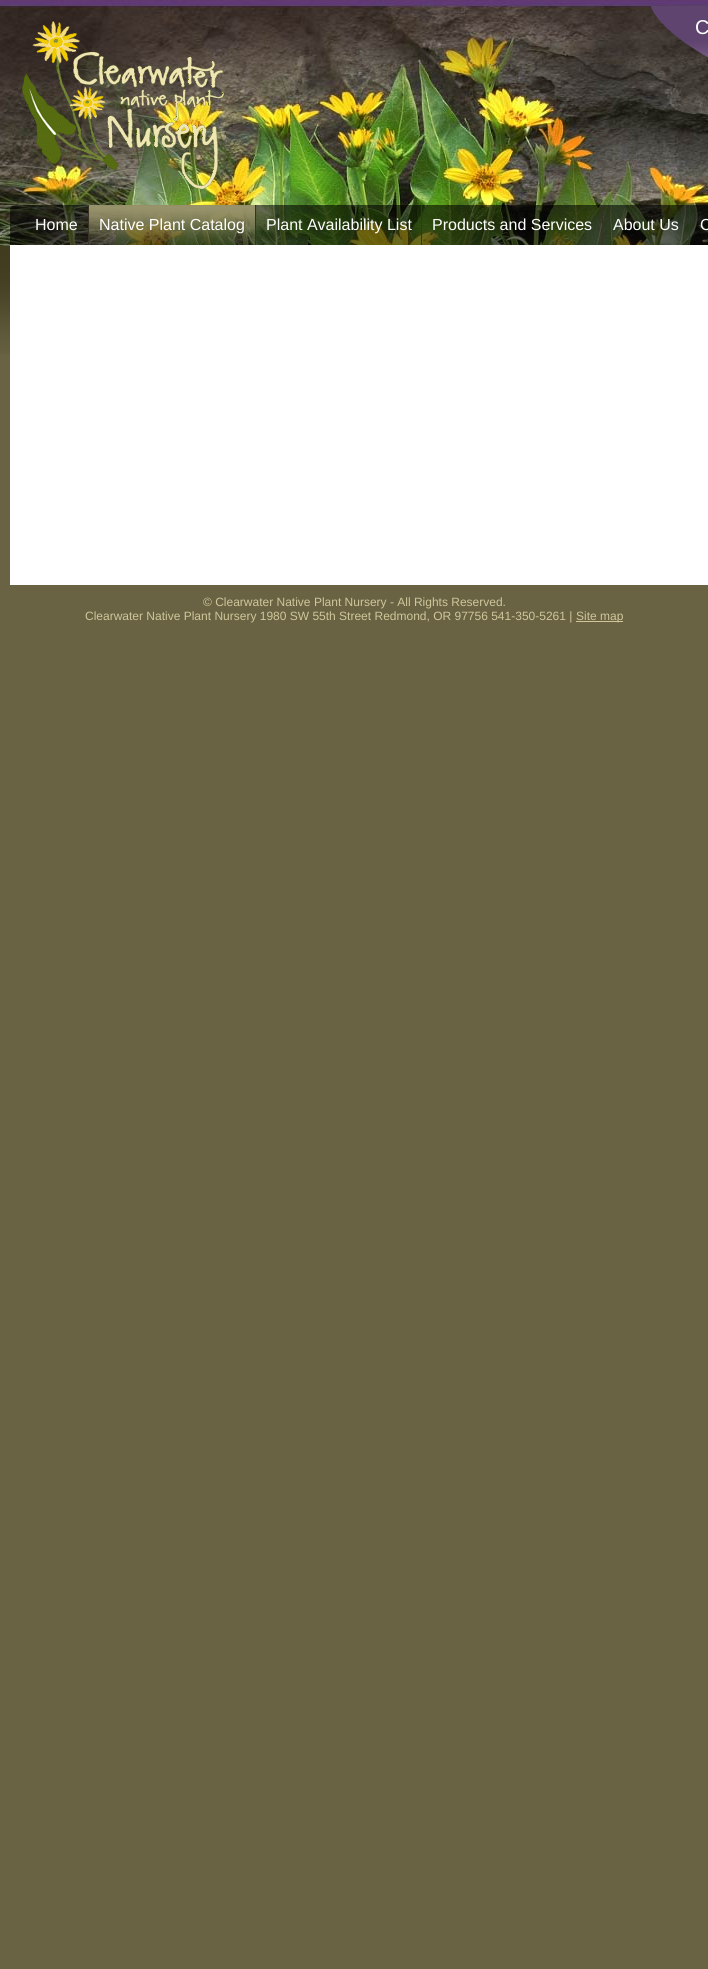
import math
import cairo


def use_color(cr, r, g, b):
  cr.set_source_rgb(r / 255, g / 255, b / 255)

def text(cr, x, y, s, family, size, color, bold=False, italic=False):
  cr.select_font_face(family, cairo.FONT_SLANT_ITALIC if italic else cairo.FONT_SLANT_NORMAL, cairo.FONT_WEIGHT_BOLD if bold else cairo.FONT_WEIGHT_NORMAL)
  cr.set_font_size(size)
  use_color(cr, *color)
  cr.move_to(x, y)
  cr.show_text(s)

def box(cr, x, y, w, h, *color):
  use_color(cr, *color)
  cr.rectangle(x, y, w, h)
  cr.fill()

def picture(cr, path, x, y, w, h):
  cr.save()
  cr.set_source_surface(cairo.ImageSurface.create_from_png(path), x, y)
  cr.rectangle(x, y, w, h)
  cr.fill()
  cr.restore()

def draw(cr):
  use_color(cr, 105, 99, 68)
  cr.paint()
  picture(cr, "img_01.png", 0, 246, 10, 108)
  picture(cr, "img_02.png", 0, 0, 708, 246)
  picture(cr, "img_03.png", 22, 21, 202, 168)
  picture(cr, "img_04.png", 651, 6, 57, 51)
  cr.set_source_rgba(0, 0, 0, 0.58)
  cr.rectangle(15, 205, 693, 40)
  cr.fill()
  picture(cr, "img_05.png", 10, 205, 5, 40)
  box(cr, 88, 205, 1, 40, 58, 50, 38)
  picture(cr, "img_06.png", 89, 205, 166, 40)
  box(cr, 255, 205, 1, 40, 58, 50, 38)
  box(cr, 421, 205, 1, 40, 58, 50, 38)
  box(cr, 602, 205, 1, 40, 58, 50, 38)
  box(cr, 689, 205, 1, 40, 58, 50, 38)
  box(cr, 10, 245, 698, 340, 255, 255, 255)
  box(cr, 576, 621, 47, 1, 207, 198, 154)
  text(cr, 695, 34, "C", "Liberation Sans", 20, (255, 255, 255))
  text(cr, 35, 230, "Home", "Liberation Sans", 16, (255, 255, 255))
  text(cr, 99, 230, "Native Plant Catalog", "Liberation Sans", 16, (255, 255, 255))
  text(cr, 266, 230, "Plant Availability List", "Liberation Sans", 16, (255, 255, 255))
  text(cr, 432, 230, "Products and Services", "Liberation Sans", 16, (255, 255, 255))
  text(cr, 613, 230, "About Us", "Liberation Sans", 16, (255, 255, 255))
  text(cr, 700, 230, "C", "Liberation Sans", 16, (255, 255, 255))
  text(cr, 203, 606, "© Clearwater Native Plant Nursery - All Rights Reserved.", "Liberation Sans", 12, (207, 198, 154))
  text(cr, 85, 620, "Clearwater Native Plant Nursery 1980 SW 55th Street Redmond, OR 97756 541-350-5261 |", "Liberation Sans", 12, (207, 198, 154))
  text(cr, 576, 620, "Site map", "Liberation Sans", 12, (207, 198, 154))


surface = cairo.ImageSurface(cairo.FORMAT_RGB24, 708, 1969)
cr = cairo.Context(surface)
options = cairo.FontOptions()
options.set_hint_metrics(cairo.HINT_METRICS_OFF)
options.set_hint_style(cairo.HINT_STYLE_NONE)
cr.set_font_options(options)
cr.set_miter_limit(4)
draw(cr)
surface.write_to_png("out.png")
